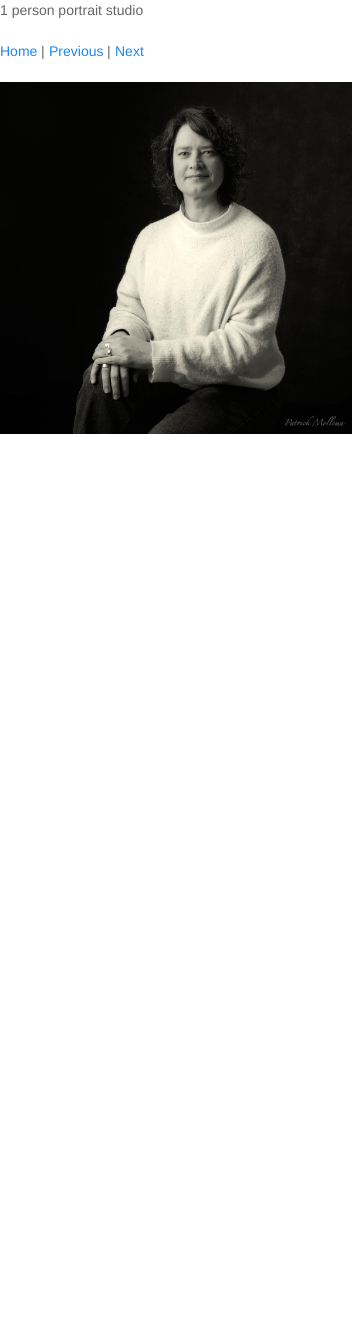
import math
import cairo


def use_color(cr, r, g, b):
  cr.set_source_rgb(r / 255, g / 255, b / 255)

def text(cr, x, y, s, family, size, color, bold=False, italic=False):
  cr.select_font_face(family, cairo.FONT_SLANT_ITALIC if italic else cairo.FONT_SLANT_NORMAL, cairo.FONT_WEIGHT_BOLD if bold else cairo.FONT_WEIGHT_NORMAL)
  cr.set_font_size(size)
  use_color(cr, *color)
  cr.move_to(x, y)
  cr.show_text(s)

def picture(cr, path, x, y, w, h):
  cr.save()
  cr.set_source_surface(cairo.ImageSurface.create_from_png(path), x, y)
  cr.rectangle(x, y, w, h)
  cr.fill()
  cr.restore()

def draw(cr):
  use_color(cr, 255, 255, 255)
  cr.paint()
  picture(cr, "img_01.png", 0, 82, 352, 352)
  text(cr, 0, 15, "1 person portrait studio", "Liberation Sans", 14, (102, 102, 102))
  text(cr, 0, 56, "Home", "Liberation Sans", 14, (30, 135, 240))
  text(cr, 41, 56, "|", "Liberation Sans", 14, (102, 102, 102))
  text(cr, 49, 56, "Previous", "Liberation Sans", 14, (30, 135, 240))
  text(cr, 107, 56, "|", "Liberation Sans", 14, (102, 102, 102))
  text(cr, 115, 56, "Next", "Liberation Sans", 14, (30, 135, 240))


surface = cairo.ImageSurface(cairo.FORMAT_RGB24, 352, 1329)
cr = cairo.Context(surface)
options = cairo.FontOptions()
options.set_hint_metrics(cairo.HINT_METRICS_OFF)
options.set_hint_style(cairo.HINT_STYLE_NONE)
cr.set_font_options(options)
cr.set_miter_limit(4)
draw(cr)
surface.write_to_png("out.png")
